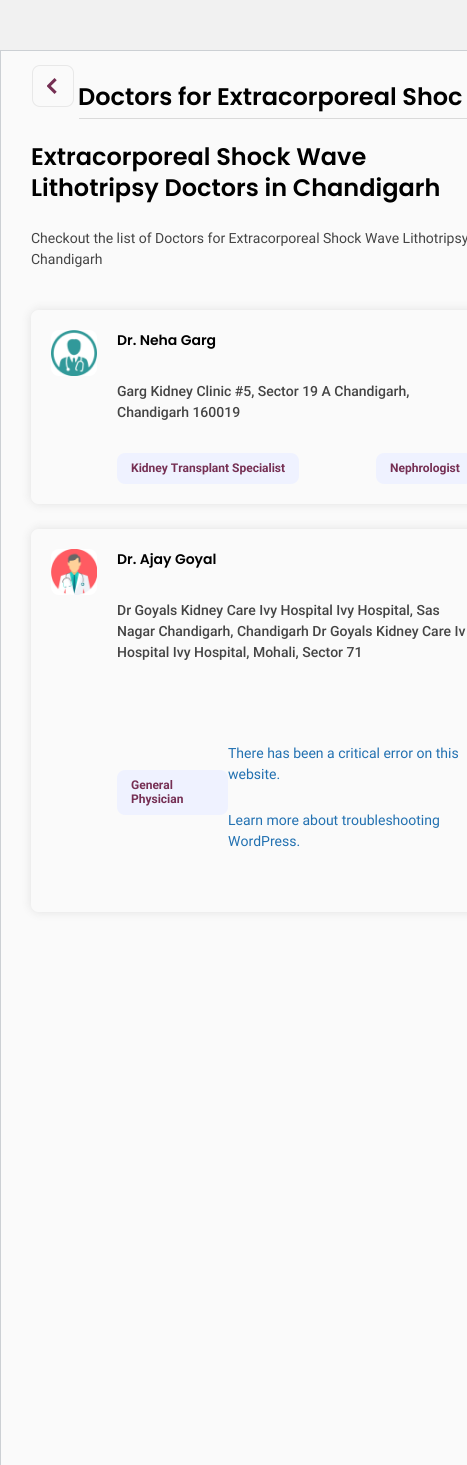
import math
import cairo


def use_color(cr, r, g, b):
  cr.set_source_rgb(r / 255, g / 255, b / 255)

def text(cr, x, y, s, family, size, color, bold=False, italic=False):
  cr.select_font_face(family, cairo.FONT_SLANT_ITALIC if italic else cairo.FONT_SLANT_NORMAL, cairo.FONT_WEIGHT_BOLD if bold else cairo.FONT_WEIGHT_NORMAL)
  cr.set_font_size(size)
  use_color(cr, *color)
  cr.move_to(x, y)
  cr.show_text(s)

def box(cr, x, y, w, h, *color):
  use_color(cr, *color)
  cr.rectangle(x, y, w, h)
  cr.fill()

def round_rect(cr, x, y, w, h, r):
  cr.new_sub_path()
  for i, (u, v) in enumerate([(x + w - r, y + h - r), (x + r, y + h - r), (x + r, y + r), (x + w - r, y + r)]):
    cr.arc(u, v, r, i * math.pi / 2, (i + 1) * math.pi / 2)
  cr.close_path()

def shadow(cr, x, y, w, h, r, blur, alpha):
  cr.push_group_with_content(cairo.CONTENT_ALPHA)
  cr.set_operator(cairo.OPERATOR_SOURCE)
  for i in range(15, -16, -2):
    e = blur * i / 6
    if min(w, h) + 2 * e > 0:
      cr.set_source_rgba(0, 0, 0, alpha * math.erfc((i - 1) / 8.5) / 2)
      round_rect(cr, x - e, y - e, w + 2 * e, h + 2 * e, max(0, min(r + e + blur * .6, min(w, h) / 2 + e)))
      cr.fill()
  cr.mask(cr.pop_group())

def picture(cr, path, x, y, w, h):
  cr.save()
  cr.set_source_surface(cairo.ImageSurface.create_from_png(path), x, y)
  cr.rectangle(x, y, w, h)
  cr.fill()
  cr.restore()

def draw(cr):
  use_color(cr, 241, 241, 241)
  cr.paint()
  cr.rectangle(0.5, 50.5, 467, 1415)
  use_color(cr, 204, 208, 212)
  cr.set_line_width(1)
  cr.stroke()
  box(cr, 1, 51, 466, 1414, 250, 250, 250)
  round_rect(cr, 32.5, 65.5, 41, 41, 7.5)
  use_color(cr, 232, 232, 232)
  cr.stroke()
  picture(cr, "img_01.png", 47, 78, 10, 16)
  box(cr, 79, 118, 388, 1, 218, 218, 218)
  cr.save()
  cr.set_fill_rule(cairo.FILL_RULE_EVEN_ODD)
  cr.new_path()
  cr.move_to(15, 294)
  cr.line_to(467, 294)
  cr.line_to(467, 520)
  cr.line_to(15, 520)
  cr.close_path()
  cr.move_to(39, 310)
  cr.line_to(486, 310)
  cr.curve_to(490.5, 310, 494, 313.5, 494, 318)
  cr.line_to(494, 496)
  cr.curve_to(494, 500.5, 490.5, 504, 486, 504)
  cr.line_to(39, 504)
  cr.curve_to(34.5, 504, 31, 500.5, 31, 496)
  cr.line_to(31, 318)
  cr.curve_to(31, 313.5, 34.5, 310, 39, 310)
  cr.close_path()
  cr.clip()
  use_color(cr, 0, 0, 0)
  shadow(cr, 31, 310, 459, 194, 8, 5, 0.1)
  cr.restore()
  picture(cr, "img_02.png", 51, 330, 46, 46)
  use_color(cr, 239, 242, 255)
  round_rect(cr, 117, 453, 182, 31, 8)
  cr.fill()
  round_rect(cr, 376, 453, 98, 31, 8)
  cr.fill()
  cr.save()
  cr.set_fill_rule(cairo.FILL_RULE_EVEN_ODD)
  cr.new_path()
  cr.move_to(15, 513)
  cr.line_to(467, 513)
  cr.line_to(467, 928)
  cr.line_to(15, 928)
  cr.close_path()
  cr.move_to(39, 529)
  cr.line_to(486, 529)
  cr.curve_to(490.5, 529, 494, 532.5, 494, 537)
  cr.line_to(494, 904)
  cr.curve_to(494, 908.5, 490.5, 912, 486, 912)
  cr.line_to(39, 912)
  cr.curve_to(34.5, 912, 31, 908.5, 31, 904)
  cr.line_to(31, 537)
  cr.curve_to(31, 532.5, 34.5, 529, 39, 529)
  cr.close_path()
  cr.clip()
  use_color(cr, 0, 0, 0)
  shadow(cr, 31, 529, 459, 383, 8, 5, 0.1)
  cr.restore()
  picture(cr, "img_03.png", 51, 549, 46, 46)
  round_rect(cr, 117, 770, 111, 45, 8)
  cr.fill()
  text(cr, 78, 105, "Doctors for Extracorporeal Shoc", "Poppins SemiBold", 24, (0, 0, 0))
  text(cr, 31, 165, "Extracorporeal Shock Wave", "Poppins SemiBold", 24, (0, 0, 0))
  text(cr, 31, 196, "Lithotripsy Doctors in Chandigarh", "Poppins SemiBold", 24, (0, 0, 0))
  text(cr, 31, 243, "Checkout the list of Doctors for Extracorporeal Shock Wave Lithotripsy", "Roboto", 14, (68, 68, 68))
  text(cr, 31, 264, "Chandigarh", "Roboto", 14, (68, 68, 68))
  text(cr, 117, 345, "Dr. Neha Garg", "Poppins SemiBold", 14, (0, 0, 0))
  text(cr, 117, 396, "Garg Kidney Clinic #5, Sector 19 A Chandigarh,", "Roboto Medium", 14, (68, 68, 68))
  text(cr, 117, 417, "Chandigarh 160019", "Roboto Medium", 14, (68, 68, 68))
  text(cr, 131, 472, "Kidney Transplant Specialist", "Roboto", 12, (117, 47, 83), bold=True)
  text(cr, 390, 472, "Nephrologist", "Roboto", 12, (117, 47, 83), bold=True)
  text(cr, 117, 564, "Dr. Ajay Goyal", "Poppins SemiBold", 14, (0, 0, 0))
  text(cr, 117, 615, "Dr Goyals Kidney Care Ivy Hospital Ivy Hospital, Sas", "Roboto Medium", 14, (68, 68, 68))
  text(cr, 117, 636, "Nagar Chandigarh, Chandigarh Dr Goyals Kidney Care Iv", "Roboto Medium", 14, (68, 68, 68))
  text(cr, 117, 657, "Hospital Ivy Hospital, Mohali, Sector 71", "Roboto Medium", 14, (68, 68, 68))
  text(cr, 131, 789, "General", "Roboto", 12, (117, 47, 83), bold=True)
  text(cr, 131, 803, "Physician", "Roboto", 12, (117, 47, 83), bold=True)
  text(cr, 228, 758, "There has been a critical error on this", "Roboto", 14, (34, 113, 177))
  text(cr, 228, 779, "website.", "Roboto", 14, (34, 113, 177))
  text(cr, 228, 825, "Learn more about troubleshooting", "Roboto", 14, (34, 113, 177))
  text(cr, 228, 846, "WordPress.", "Roboto", 14, (34, 113, 177))


surface = cairo.ImageSurface(cairo.FORMAT_RGB24, 467, 1465)
cr = cairo.Context(surface)
options = cairo.FontOptions()
options.set_hint_metrics(cairo.HINT_METRICS_OFF)
options.set_hint_style(cairo.HINT_STYLE_NONE)
cr.set_font_options(options)
cr.set_miter_limit(4)
draw(cr)
surface.write_to_png("out.png")
